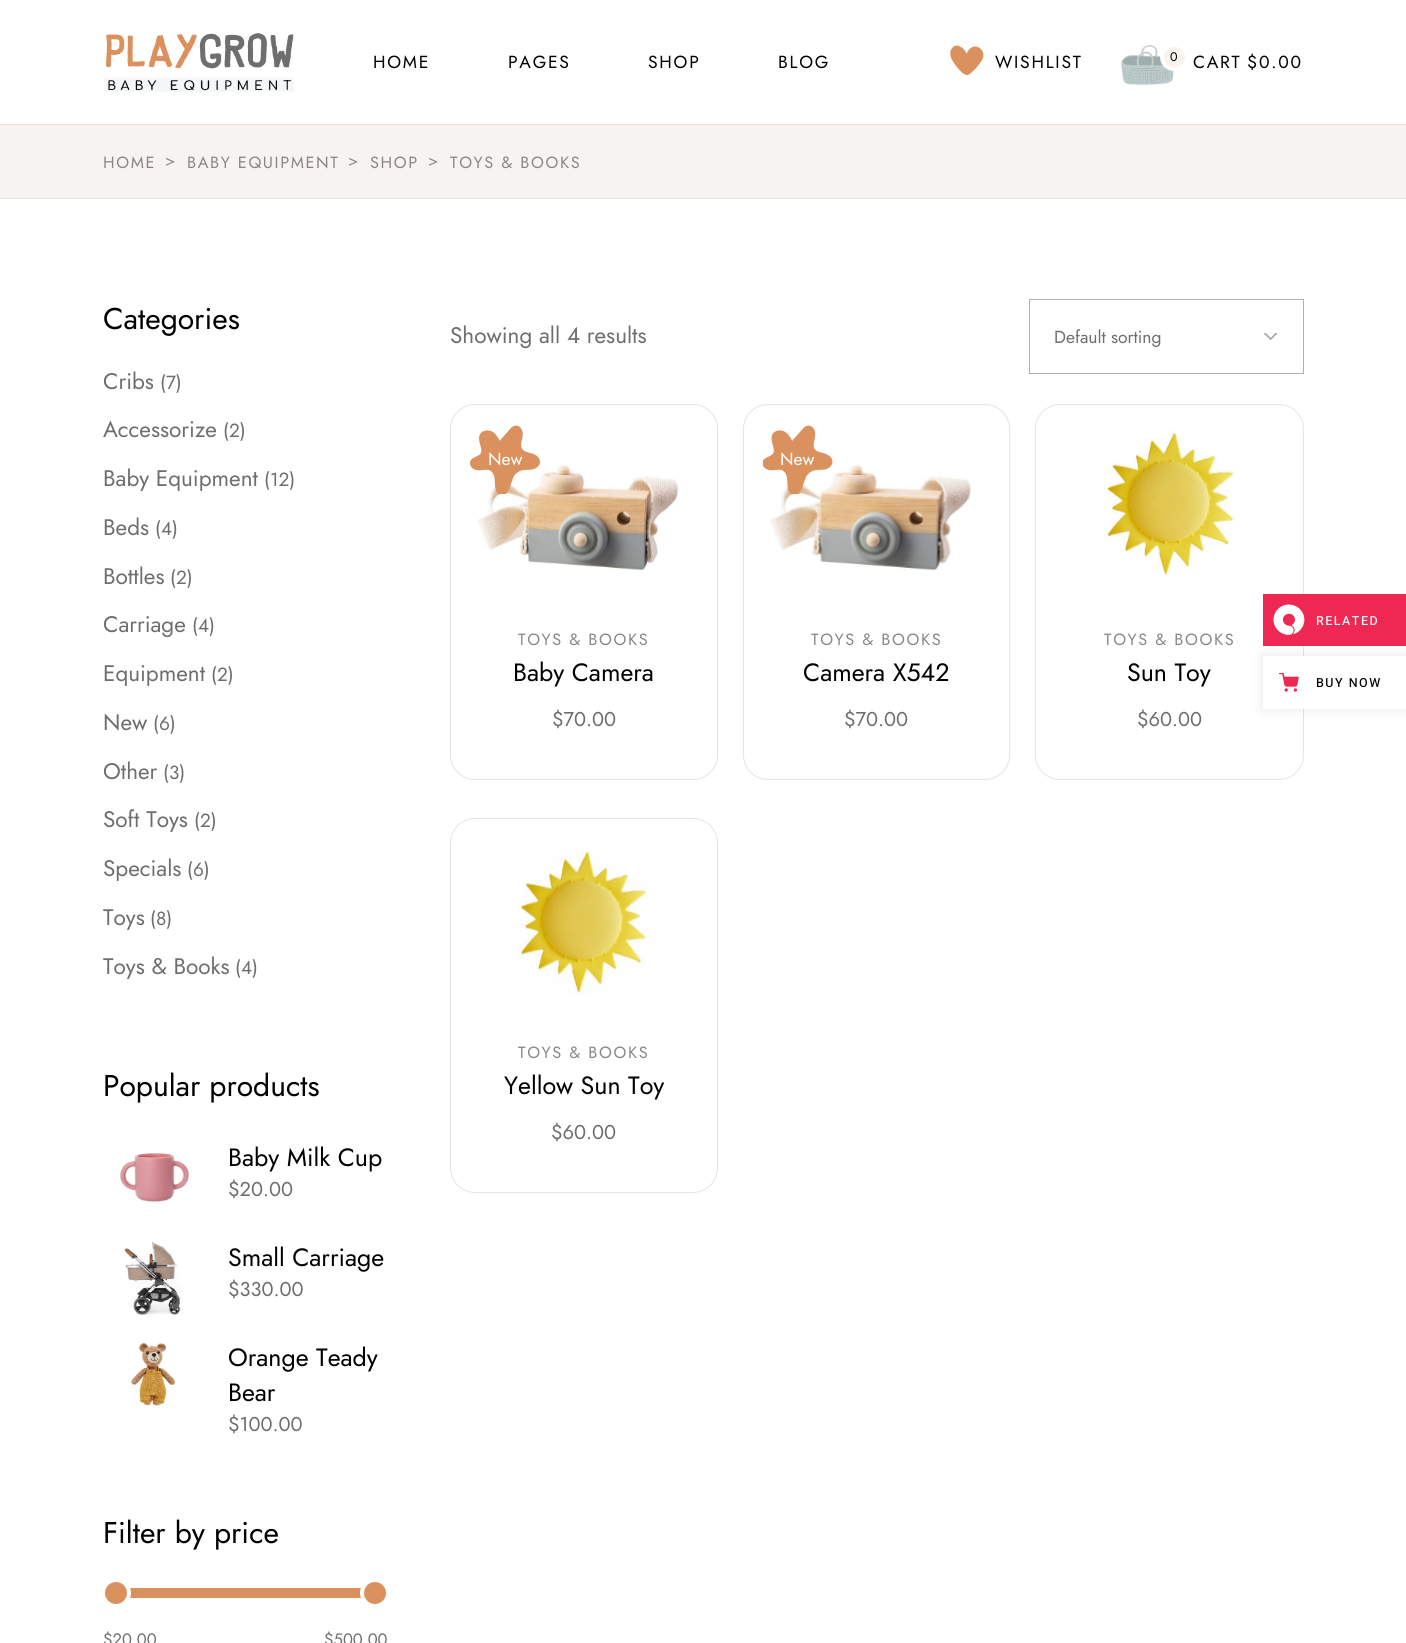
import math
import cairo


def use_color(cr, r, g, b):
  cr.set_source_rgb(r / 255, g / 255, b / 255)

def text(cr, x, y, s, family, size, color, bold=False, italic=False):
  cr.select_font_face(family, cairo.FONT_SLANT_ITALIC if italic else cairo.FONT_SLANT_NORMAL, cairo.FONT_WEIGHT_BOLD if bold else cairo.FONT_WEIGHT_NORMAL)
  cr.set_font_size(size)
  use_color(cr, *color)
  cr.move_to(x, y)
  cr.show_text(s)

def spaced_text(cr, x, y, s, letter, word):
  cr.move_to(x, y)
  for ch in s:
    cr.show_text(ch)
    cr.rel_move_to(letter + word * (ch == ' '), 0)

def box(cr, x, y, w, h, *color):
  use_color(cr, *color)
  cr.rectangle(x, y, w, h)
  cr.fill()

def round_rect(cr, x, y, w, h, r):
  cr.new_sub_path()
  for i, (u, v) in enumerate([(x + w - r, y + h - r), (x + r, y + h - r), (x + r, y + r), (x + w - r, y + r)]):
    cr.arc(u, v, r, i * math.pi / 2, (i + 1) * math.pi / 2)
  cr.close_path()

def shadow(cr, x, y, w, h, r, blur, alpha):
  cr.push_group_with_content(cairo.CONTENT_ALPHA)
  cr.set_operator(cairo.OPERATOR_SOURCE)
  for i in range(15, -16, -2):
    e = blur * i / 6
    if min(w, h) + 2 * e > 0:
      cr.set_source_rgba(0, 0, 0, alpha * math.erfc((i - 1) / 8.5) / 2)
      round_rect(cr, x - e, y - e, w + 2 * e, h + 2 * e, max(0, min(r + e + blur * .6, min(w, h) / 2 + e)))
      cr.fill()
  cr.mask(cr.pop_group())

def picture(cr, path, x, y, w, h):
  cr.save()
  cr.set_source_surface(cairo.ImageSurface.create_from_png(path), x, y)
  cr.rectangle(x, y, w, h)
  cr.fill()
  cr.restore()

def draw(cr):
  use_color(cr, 255, 255, 255)
  cr.paint()
  box(cr, 0, 124, 1406, 1, 234, 227, 222)
  picture(cr, "img_01.png", 104, 33, 190, 59)
  picture(cr, "img_02.png", 950, 45, 34, 31)
  picture(cr, "img_03.png", 1121, 45, 53, 40)
  use_color(cr, 248, 244, 236)
  round_rect(cr, 1162, 45, 25, 24, 12)
  cr.fill_preserve()
  use_color(cr, 255, 255, 255)
  cr.set_line_width(4)
  cr.stroke()
  box(cr, 0, 125, 1406, 73, 247, 243, 240)
  box(cr, 0, 198, 1406, 1, 234, 227, 222)
  picture(cr, "img_04.png", 120, 1153, 69, 49)
  picture(cr, "img_05.png", 124, 1241, 59, 74)
  picture(cr, "img_06.png", 131, 1342, 45, 64)
  gradient = cairo.LinearGradient(102, 1593, 389, 1593)
  gradient.add_color_stop_rgba(0, 0.859, 0.569, 0.369, 0)
  gradient.add_color_stop_rgba(0, 0.859, 0.569, 0.369, 1)
  gradient.add_color_stop_rgba(1, 0.859, 0.569, 0.369, 1)
  gradient.add_color_stop_rgba(1, 0.859, 0.569, 0.369, 0)
  cr.set_source(gradient)
  cr.rectangle(130, 1588, 231, 10)
  cr.fill()
  use_color(cr, 219, 145, 94)
  cr.arc(116, 1593, 13, 0, 2 * math.pi)
  cr.fill_preserve()
  use_color(cr, 255, 255, 255)
  cr.stroke()
  use_color(cr, 219, 145, 94)
  cr.arc(375, 1593, 13, 0, 2 * math.pi)
  cr.fill_preserve()
  use_color(cr, 255, 255, 255)
  cr.stroke()
  picture(cr, "img_07.png", 1264, 333, 14, 7)
  cr.rectangle(1029.5, 299.5, 274, 74)
  use_color(cr, 181, 174, 174)
  cr.set_line_width(1)
  cr.stroke()
  round_rect(cr, 450.5, 404.5, 267, 375, 24.5)
  use_color(cr, 234, 227, 222)
  cr.stroke()
  picture(cr, "img_09.png", 477, 464, 202, 107)
  picture(cr, "img_08.png", 470, 425, 70, 69)
  round_rect(cr, 743.5, 404.5, 266, 375, 24.5)
  cr.stroke()
  picture(cr, "img_11.png", 770, 464, 201, 107)
  picture(cr, "img_10.png", 763, 425, 70, 69)
  round_rect(cr, 1035.5, 404.5, 268, 375, 24.5)
  cr.stroke()
  picture(cr, "img_12.png", 1103, 429, 133, 147)
  round_rect(cr, 450.5, 818.5, 267, 374, 24.5)
  cr.stroke()
  picture(cr, "img_13.png", 518, 849, 129, 147)
  box(cr, 1263, 594, 143, 52, 239, 40, 83)
  picture(cr, "img_14.png", 1273, 604, 32, 31)
  use_color(cr, 0, 0, 0)
  shadow(cr, 1263, 656, 143, 53, 0, 6, 0.1)
  box(cr, 1263, 656, 143, 53, 255, 255, 255)
  picture(cr, "img_15.png", 1279, 673, 20, 19)
  cr.select_font_face("Jost")
  cr.set_font_size(17.5)
  use_color(cr, 0, 0, 0)
  spaced_text(cr, 373, 68, "HOME", 1.75, 0)
  spaced_text(cr, 508, 68, "PAGES", 1.75, 0)
  spaced_text(cr, 648, 68, "SHOP", 1.75, 0)
  spaced_text(cr, 778, 68, "BLOG", 1.75, 0)
  spaced_text(cr, 995, 68, "WISHLIST", 1.75, 0)
  cr.set_font_size(12.5)
  spaced_text(cr, 1170, 61, "0", 1, 0)
  cr.set_font_size(17.5)
  spaced_text(cr, 1193, 68, "CART", 1.75, 0)
  spaced_text(cr, 1247, 68, "$0.00", 1.75, 0)
  cr.set_font_size(16.25)
  use_color(cr, 139, 134, 134)
  spaced_text(cr, 103, 168, "HOME", 1.6, 0)
  spaced_text(cr, 165, 166, ">", 1.6, 0)
  spaced_text(cr, 187, 168, "BABY EQUIPMENT", 1.6, 0)
  spaced_text(cr, 348, 166, ">", 1.6, 0)
  spaced_text(cr, 370, 168, "SHOP", 1.6, 0)
  spaced_text(cr, 428, 166, ">", 1.6, 0)
  spaced_text(cr, 450, 168, "TOYS & BOOKS", 1.6, 0)
  text(cr, 103, 329, "Categories", "Jost", 30, (0, 0, 0))
  text(cr, 103, 389, "Cribs", "Jost", 22.5, (110, 110, 110))
  text(cr, 160, 389, "(7)", "Jost", 19, (110, 110, 110))
  text(cr, 103, 437, "Accessorize", "Jost", 22.5, (110, 110, 110))
  text(cr, 223, 437, "(2)", "Jost", 19, (110, 110, 110))
  text(cr, 103, 486, "Baby Equipment", "Jost", 22.5, (110, 110, 110))
  text(cr, 264, 486, "(12)", "Jost", 19, (110, 110, 110))
  text(cr, 103, 535, "Beds", "Jost", 22.5, (110, 110, 110))
  text(cr, 155, 535, "(4)", "Jost", 19, (110, 110, 110))
  text(cr, 103, 584, "Bottles", "Jost", 22.5, (110, 110, 110))
  text(cr, 170, 584, "(2)", "Jost", 19, (110, 110, 110))
  text(cr, 103, 632, "Carriage", "Jost", 22.5, (110, 110, 110))
  text(cr, 192, 632, "(4)", "Jost", 19, (110, 110, 110))
  text(cr, 103, 681, "Equipment", "Jost", 22.5, (110, 110, 110))
  text(cr, 211, 681, "(2)", "Jost", 19, (110, 110, 110))
  text(cr, 103, 730, "New", "Jost", 22.5, (110, 110, 110))
  text(cr, 153, 730, "(6)", "Jost", 19, (110, 110, 110))
  text(cr, 103, 779, "Other", "Jost", 22.5, (110, 110, 110))
  text(cr, 163, 779, "(3)", "Jost", 19, (110, 110, 110))
  text(cr, 103, 827, "Soft Toys", "Jost", 22.5, (110, 110, 110))
  text(cr, 194, 827, "(2)", "Jost", 19, (110, 110, 110))
  text(cr, 103, 876, "Specials", "Jost", 22.5, (110, 110, 110))
  text(cr, 187, 876, "(6)", "Jost", 19, (110, 110, 110))
  text(cr, 103, 925, "Toys", "Jost", 22.5, (110, 110, 110))
  text(cr, 150, 925, "(8)", "Jost", 19, (110, 110, 110))
  text(cr, 103, 974, "Toys & Books", "Jost", 22.5, (110, 110, 110))
  text(cr, 235, 974, "(4)", "Jost", 19, (110, 110, 110))
  text(cr, 103, 1096, "Popular products", "Jost", 30, (0, 0, 0))
  text(cr, 228, 1166, "Baby Milk Cup", "Jost", 25, (0, 0, 0))
  text(cr, 228, 1196, "$20.00", "Jost", 20, (110, 110, 110))
  text(cr, 228, 1266, "Small Carriage", "Jost", 25, (0, 0, 0))
  text(cr, 228, 1296, "$330.00", "Jost", 20, (110, 110, 110))
  text(cr, 228, 1366, "Orange Teady", "Jost", 25, (0, 0, 0))
  text(cr, 228, 1401, "Bear", "Jost", 25, (0, 0, 0))
  text(cr, 228, 1431, "$100.00", "Jost", 20, (110, 110, 110))
  text(cr, 103, 1543, "Filter by price", "Jost", 30, (0, 0, 0))
  text(cr, 103, 1645, "$20.00", "Jost", 16.5, (110, 110, 110))
  text(cr, 324, 1645, "$500.00", "Jost", 16.5, (110, 110, 110))
  text(cr, 450, 343, "Showing all 4 results", "Jost", 22.5, (110, 110, 110))
  text(cr, 1054, 343, "Default sorting", "Jost", 17.5, (110, 110, 110))
  text(cr, 488, 465, "New", "Jost", 17.5, (255, 255, 255))
  cr.set_font_size(16.25)
  use_color(cr, 139, 134, 134)
  spaced_text(cr, 518, 645, "TOYS & BOOKS", 1.6, 0)
  text(cr, 513, 681, "Baby Camera", "Jost", 25, (0, 0, 0))
  text(cr, 552, 726, "$70.00", "Jost", 20, (110, 110, 110))
  text(cr, 780, 465, "New", "Jost", 17.5, (255, 255, 255))
  cr.set_font_size(16.25)
  use_color(cr, 139, 134, 134)
  spaced_text(cr, 811, 645, "TOYS & BOOKS", 1.6, 0)
  text(cr, 803, 681, "Camera X542", "Jost", 25, (0, 0, 0))
  text(cr, 844, 726, "$70.00", "Jost", 20, (110, 110, 110))
  cr.set_font_size(16.25)
  use_color(cr, 139, 134, 134)
  spaced_text(cr, 1104, 645, "TOYS & BOOKS", 1.6, 0)
  text(cr, 1127, 681, "Sun Toy", "Jost", 25, (0, 0, 0))
  text(cr, 1137, 726, "$60.00", "Jost", 20, (110, 110, 110))
  cr.set_font_size(16.25)
  use_color(cr, 139, 134, 134)
  spaced_text(cr, 518, 1058, "TOYS & BOOKS", 1.6, 0)
  text(cr, 504, 1094, "Yellow Sun Toy", "Jost", 25, (0, 0, 0))
  text(cr, 551, 1139, "$60.00", "Jost", 20, (110, 110, 110))
  cr.select_font_face("Heebo Medium")
  cr.set_font_size(12.5)
  use_color(cr, 255, 255, 255)
  spaced_text(cr, 1316, 625, "RELATED", 1.5, 0)
  use_color(cr, 0, 0, 0)
  spaced_text(cr, 1316, 687, "BUY NOW", 1.5, 0)


surface = cairo.ImageSurface(cairo.FORMAT_RGB24, 1406, 1643)
cr = cairo.Context(surface)
options = cairo.FontOptions()
options.set_hint_metrics(cairo.HINT_METRICS_OFF)
options.set_hint_style(cairo.HINT_STYLE_NONE)
cr.set_font_options(options)
cr.set_miter_limit(4)
draw(cr)
surface.write_to_png("out.png")
